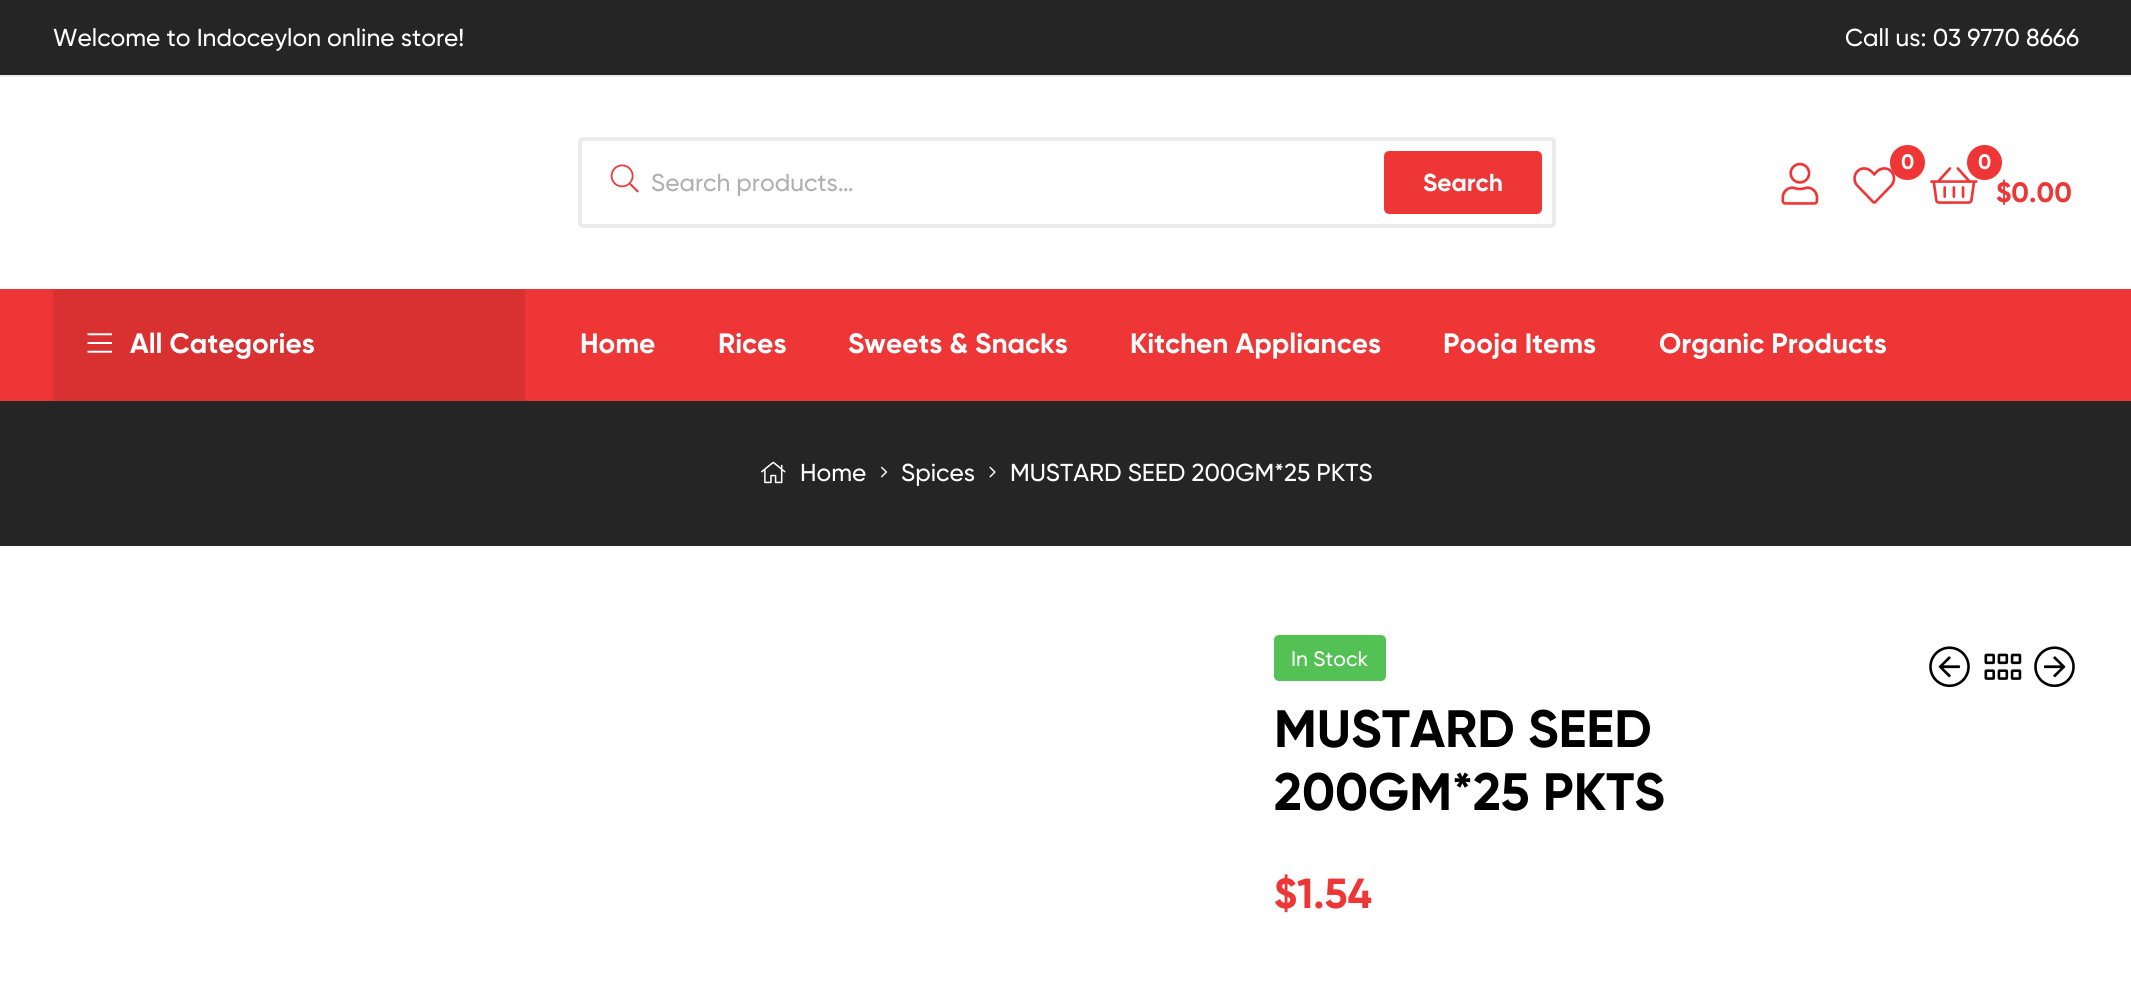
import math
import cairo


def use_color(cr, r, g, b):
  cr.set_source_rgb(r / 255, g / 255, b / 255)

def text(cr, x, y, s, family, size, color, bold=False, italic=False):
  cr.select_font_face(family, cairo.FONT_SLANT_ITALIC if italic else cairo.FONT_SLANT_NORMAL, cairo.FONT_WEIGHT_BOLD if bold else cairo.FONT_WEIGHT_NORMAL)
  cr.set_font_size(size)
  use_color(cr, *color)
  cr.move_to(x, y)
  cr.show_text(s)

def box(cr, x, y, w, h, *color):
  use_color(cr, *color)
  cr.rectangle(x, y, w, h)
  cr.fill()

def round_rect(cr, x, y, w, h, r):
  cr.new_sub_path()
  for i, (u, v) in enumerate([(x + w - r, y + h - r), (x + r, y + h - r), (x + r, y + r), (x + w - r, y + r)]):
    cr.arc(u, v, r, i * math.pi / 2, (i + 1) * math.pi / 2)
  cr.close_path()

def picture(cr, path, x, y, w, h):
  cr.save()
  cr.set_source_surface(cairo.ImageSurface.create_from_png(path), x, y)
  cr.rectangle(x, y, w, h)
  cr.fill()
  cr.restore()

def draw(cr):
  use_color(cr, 255, 255, 255)
  cr.paint()
  box(cr, 0, 0, 2131, 75, 37, 37, 37)
  box(cr, 0, 75, 2131, 2, 235, 235, 235)
  round_rect(cr, 580, 139, 974, 87, 3)
  cr.set_line_width(4)
  cr.stroke()
  picture(cr, "img_01.png", 610, 164, 29, 29)
  use_color(cr, 239, 54, 54)
  round_rect(cr, 1386, 153, 154, 59, 3)
  cr.fill_preserve()
  cr.stroke()
  picture(cr, "img_02.png", 1781, 162, 38, 43)
  picture(cr, "img_03.png", 1853, 167, 43, 37)
  cr.arc(1907.5, 162.5, 17.5, 0, 2 * math.pi)
  cr.fill()
  picture(cr, "img_04.png", 1930, 167, 48, 37)
  cr.arc(1984.5, 162.5, 17.5, 0, 2 * math.pi)
  cr.fill()
  box(cr, 0, 289, 2131, 112, 239, 54, 54)
  box(cr, 53, 289, 472, 112, 217, 49, 49)
  picture(cr, "img_05.png", 87, 333, 25, 20)
  box(cr, 0, 401, 2131, 145, 37, 37, 37)
  picture(cr, "img_06.png", 761, 461, 25, 23)
  picture(cr, "img_07.png", 881, 466, 7, 12)
  picture(cr, "img_08.png", 989, 466, 7, 12)
  use_color(cr, 84, 193, 84)
  round_rect(cr, 1274, 635, 112, 46, 5)
  cr.fill()
  picture(cr, "img_09.png", 1929, 646, 41, 42)
  picture(cr, "img_10.png", 1984, 653, 38, 27)
  picture(cr, "img_11.png", 2034, 646, 41, 42)
  text(cr, 53, 46, "Welcome to Indoceylon online store!", "Gilroy Medium", 24.5, (255, 255, 255))
  text(cr, 1845, 46, "Call us: 03 9770 8666", "Gilroy Medium", 24.5, (255, 255, 255))
  text(cr, 651, 191, "Search products…", "Gilroy Medium", 24.5, (176, 176, 176))
  text(cr, 1423, 191, "Search", "Gilroy", 24.5, (255, 255, 255), bold=True)
  text(cr, 1901, 169, "0", "Gilroy", 21, (255, 255, 255), bold=True)
  text(cr, 1978, 169, "0", "Gilroy", 21, (255, 255, 255), bold=True)
  text(cr, 1996, 202, "$0.00", "Gilroy", 28, (239, 54, 54), bold=True)
  text(cr, 130, 353, "All Categories", "Gilroy", 28, (255, 255, 255), bold=True)
  text(cr, 580, 353, "Home", "Gilroy", 28, (255, 255, 255), bold=True)
  text(cr, 718, 353, "Rices", "Gilroy", 28, (255, 255, 255), bold=True)
  text(cr, 848, 353, "Sweets & Snacks", "Gilroy", 28, (255, 255, 255), bold=True)
  text(cr, 1130, 353, "Kitchen Appliances", "Gilroy", 28, (255, 255, 255), bold=True)
  text(cr, 1443, 353, "Pooja Items", "Gilroy", 28, (255, 255, 255), bold=True)
  text(cr, 1659, 353, "Organic Products", "Gilroy", 28, (255, 255, 255), bold=True)
  text(cr, 800, 481, "Home", "Gilroy Medium", 24.5, (255, 255, 255))
  text(cr, 901, 481, "Spices", "Gilroy Medium", 24.5, (255, 255, 255))
  text(cr, 1010, 481, "MUSTARD SEED 200GM*25 PKTS", "Gilroy Medium", 24.5, (255, 255, 255))
  text(cr, 1291, 666, "In Stock", "Gilroy Medium", 21, (255, 255, 255))
  text(cr, 1274, 747, "MUSTARD SEED", "Gilroy", 52.5, (0, 0, 0), bold=True)
  text(cr, 1274, 810, "200GM*25 PKTS", "Gilroy", 52.5, (0, 0, 0), bold=True)
  text(cr, 1274, 908, "$1.54", "Gilroy", 42, (239, 54, 54), bold=True)


surface = cairo.ImageSurface(cairo.FORMAT_RGB24, 2131, 1005)
cr = cairo.Context(surface)
options = cairo.FontOptions()
options.set_hint_metrics(cairo.HINT_METRICS_OFF)
options.set_hint_style(cairo.HINT_STYLE_NONE)
cr.set_font_options(options)
cr.set_miter_limit(4)
draw(cr)
surface.write_to_png("out.png")
